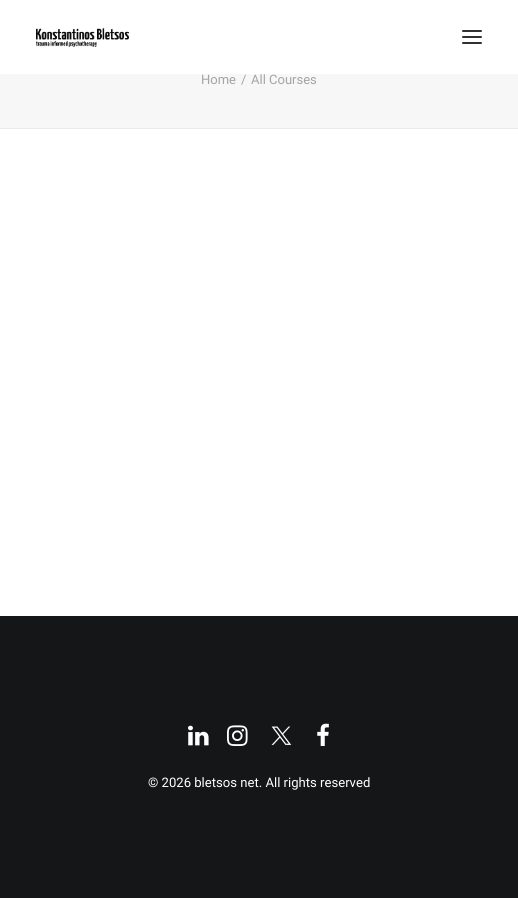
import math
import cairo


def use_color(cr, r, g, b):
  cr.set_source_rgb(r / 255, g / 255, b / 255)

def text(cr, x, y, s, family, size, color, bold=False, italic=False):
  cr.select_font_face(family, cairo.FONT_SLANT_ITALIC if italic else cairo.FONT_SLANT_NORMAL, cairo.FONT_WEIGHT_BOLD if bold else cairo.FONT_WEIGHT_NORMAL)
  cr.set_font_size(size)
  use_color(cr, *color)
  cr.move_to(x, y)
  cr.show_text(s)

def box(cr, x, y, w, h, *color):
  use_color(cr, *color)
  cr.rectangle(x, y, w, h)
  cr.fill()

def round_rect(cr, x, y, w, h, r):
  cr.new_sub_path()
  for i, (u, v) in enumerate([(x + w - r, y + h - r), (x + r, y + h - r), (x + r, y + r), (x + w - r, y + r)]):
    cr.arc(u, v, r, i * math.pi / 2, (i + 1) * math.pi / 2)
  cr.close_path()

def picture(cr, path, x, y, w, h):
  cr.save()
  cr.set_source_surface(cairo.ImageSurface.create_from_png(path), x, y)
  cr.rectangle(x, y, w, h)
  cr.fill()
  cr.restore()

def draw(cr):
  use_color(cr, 255, 255, 255)
  cr.paint()
  picture(cr, "img_01.png", 36, 28, 93, 19)
  use_color(cr, 48, 49, 51)
  round_rect(cr, 462, 36, 20, 2, 1)
  cr.fill()
  round_rect(cr, 462, 30, 20, 2, 1)
  cr.fill()
  round_rect(cr, 462, 42, 20, 2, 1)
  cr.fill()
  box(cr, 0, 74, 518, 54, 247, 247, 247)
  box(cr, 0, 128, 518, 1, 234, 234, 234)
  box(cr, 0, 616, 518, 282, 20, 22, 24)
  picture(cr, "img_02.png", 188, 725, 21, 21)
  picture(cr, "img_03.png", 227, 725, 21, 21)
  picture(cr, "img_04.png", 271, 726, 21, 19)
  picture(cr, "img_05.png", 317, 723, 12, 23)
  text(cr, 201, 84, "Home", "Roboto", 13, (164, 164, 164))
  text(cr, 241, 84, "/", "Roboto", 13, (164, 164, 164))
  text(cr, 251, 84, "All Courses", "Roboto", 13, (164, 164, 164))
  text(cr, 148, 787, "© 2026 bletsos net. All rights reserved", "Roboto", 13.1, (255, 255, 255))


surface = cairo.ImageSurface(cairo.FORMAT_RGB24, 518, 898)
cr = cairo.Context(surface)
options = cairo.FontOptions()
options.set_hint_metrics(cairo.HINT_METRICS_OFF)
options.set_hint_style(cairo.HINT_STYLE_NONE)
cr.set_font_options(options)
cr.set_miter_limit(4)
draw(cr)
surface.write_to_png("out.png")
